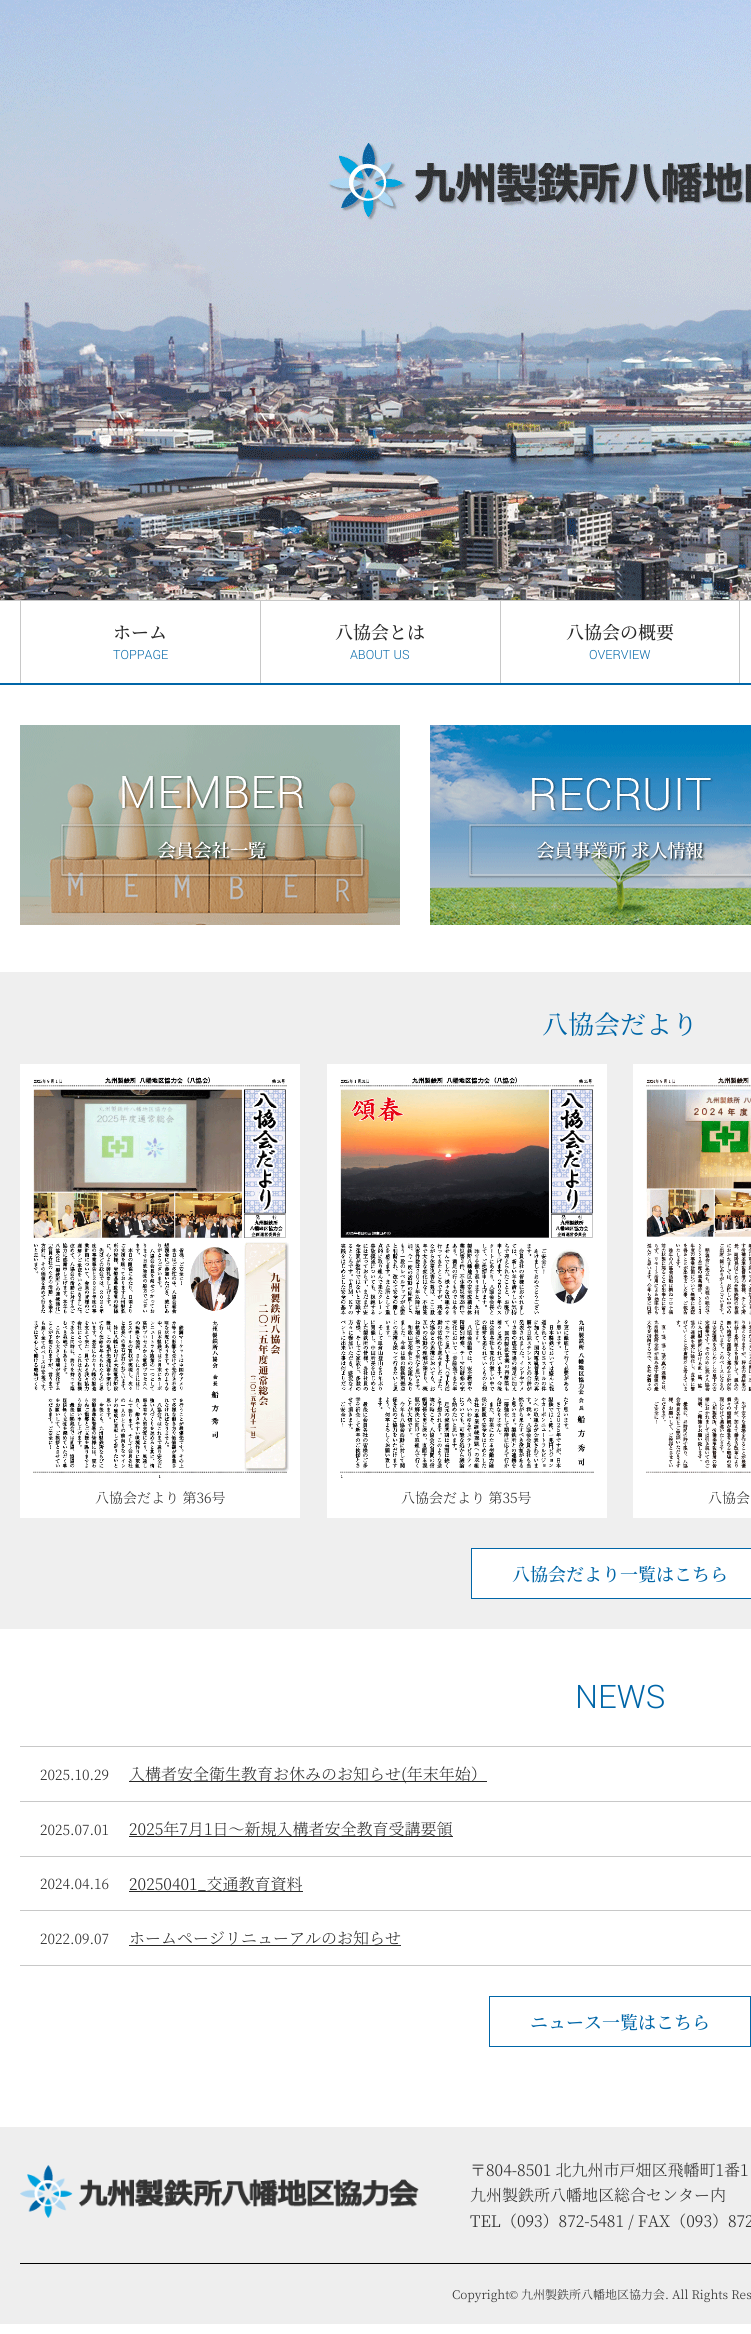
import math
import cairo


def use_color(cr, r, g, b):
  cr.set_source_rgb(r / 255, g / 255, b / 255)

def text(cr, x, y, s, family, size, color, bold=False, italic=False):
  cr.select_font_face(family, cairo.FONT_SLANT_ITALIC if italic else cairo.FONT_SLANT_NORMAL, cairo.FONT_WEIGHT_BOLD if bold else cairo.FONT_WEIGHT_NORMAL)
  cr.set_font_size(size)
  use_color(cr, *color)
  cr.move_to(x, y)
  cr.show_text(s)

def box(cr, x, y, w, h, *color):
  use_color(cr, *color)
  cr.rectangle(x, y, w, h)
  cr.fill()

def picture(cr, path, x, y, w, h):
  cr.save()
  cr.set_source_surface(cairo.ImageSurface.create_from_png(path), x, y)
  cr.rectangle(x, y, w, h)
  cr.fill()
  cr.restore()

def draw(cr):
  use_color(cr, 255, 255, 255)
  cr.paint()
  picture(cr, "img_01.png", 0, 0, 751, 600)
  box(cr, 0, 683, 751, 2, 0, 102, 168)
  box(cr, 0, 600, 751, 1, 200, 200, 200)
  box(cr, 260, 601, 1, 82, 200, 200, 200)
  box(cr, 20, 601, 1, 82, 200, 200, 200)
  box(cr, 500, 601, 1, 82, 200, 200, 200)
  box(cr, 739, 601, 1, 82, 200, 200, 200)
  picture(cr, "img_02.png", 20, 725, 380, 200)
  picture(cr, "img_03.png", 430, 725, 321, 200)
  box(cr, 0, 972, 751, 657, 239, 239, 239)
  box(cr, 20, 1064, 280, 454, 255, 255, 255)
  picture(cr, "img_04.png", 33, 1077, 256, 401)
  box(cr, 327, 1064, 280, 454, 255, 255, 255)
  picture(cr, "img_05.png", 340, 1077, 254, 401)
  box(cr, 633, 1064, 118, 454, 255, 255, 255)
  picture(cr, "img_06.png", 646, 1077, 105, 396)
  cr.rectangle(471.5, 1548.5, 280, 50)
  cr.fill_preserve()
  use_color(cr, 0, 102, 168)
  cr.set_line_width(1)
  cr.stroke()
  box(cr, 20, 1746, 731, 1, 200, 200, 200)
  box(cr, 20, 1801, 731, 1, 200, 200, 200)
  box(cr, 129, 1781, 358, 1, 40, 40, 40)
  box(cr, 20, 1856, 731, 1, 200, 200, 200)
  box(cr, 129, 1836, 324, 1, 40, 40, 40)
  box(cr, 20, 1910, 731, 1, 200, 200, 200)
  box(cr, 129, 1891, 174, 1, 40, 40, 40)
  box(cr, 20, 1965, 731, 1, 200, 200, 200)
  box(cr, 129, 1945, 272, 1, 40, 40, 40)
  cr.rectangle(489.5, 1996.5, 261, 50)
  use_color(cr, 0, 102, 168)
  cr.stroke()
  box(cr, 0, 2127, 751, 197, 238, 238, 238)
  picture(cr, "img_07.png", 20, 2165, 399, 53)
  box(cr, 20, 2263, 731, 1, 0, 0, 0)
  text(cr, 113, 639, "ホーム", "Noto Serif JP Medium", 18, (40, 40, 40))
  text(cr, 113, 659, "TOPPAGE", "Yantramanav Light", 14, (0, 102, 168))
  text(cr, 335, 639, "八協会とは", "Noto Serif JP Medium", 18, (40, 40, 40))
  text(cr, 350, 659, "ABOUT US", "Yantramanav Light", 14, (0, 102, 168))
  text(cr, 566, 639, "八協会の概要", "Noto Serif JP Medium", 18, (40, 40, 40))
  text(cr, 589, 659, "OVERVIEW", "Yantramanav Light", 14, (0, 102, 168))
  text(cr, 542, 1034, "八協会だより", "Noto Serif JP", 26, (0, 102, 168))
  text(cr, 95, 1503, "八協会だより 第36号", "Noto Serif JP Light", 14, (40, 40, 40))
  text(cr, 401, 1503, "八協会だより 第35号", "Noto Serif JP Light", 14, (40, 40, 40))
  text(cr, 708, 1503, "八協会", "Noto Serif JP Light", 14, (40, 40, 40))
  text(cr, 512, 1581, "八協会だより一覧はこちら", "Noto Serif JP Medium", 18, (0, 102, 168))
  text(cr, 575, 1708, "NEWS", "Yantramanav Light", 36, (0, 102, 168))
  text(cr, 40, 1780, "2025.10.29", "Noto Serif JP Light", 14, (40, 40, 40))
  text(cr, 129, 1780, "入構者安全衛生教育お休みのお知らせ(年末年始）", "Noto Serif JP Light", 16, (40, 40, 40))
  text(cr, 40, 1835, "2025.07.01", "Noto Serif JP Light", 14, (40, 40, 40))
  text(cr, 129, 1835, "2025年7月1日～新規入構者安全教育受講要領", "Noto Serif JP Light", 16, (40, 40, 40))
  text(cr, 40, 1889, "2024.04.16", "Noto Serif JP Light", 14, (40, 40, 40))
  text(cr, 129, 1890, "20250401_交通教育資料", "Noto Serif JP Light", 16, (40, 40, 40))
  text(cr, 40, 1944, "2022.09.07", "Noto Serif JP Light", 14, (40, 40, 40))
  text(cr, 129, 1944, "ホームページリニューアルのお知らせ", "Noto Serif JP Light", 16, (40, 40, 40))
  text(cr, 530, 2029, "ニュース一覧はこちら", "Noto Serif JP Medium", 18, (0, 102, 168))
  text(cr, 470, 2176, "〒804-8501 北九州市戸畑区飛幡町1番1", "Noto Serif JP Light", 16, (40, 40, 40))
  text(cr, 470, 2201, "九州製鉄所八幡地区総合センター内", "Noto Serif JP Light", 16, (40, 40, 40))
  text(cr, 470, 2227, "TEL（093）872-5481 / FAX（093）872", "Noto Serif JP Light", 16, (40, 40, 40))
  text(cr, 452, 2299, "Copyright", "Noto Serif JP Light", 12, (40, 40, 40))
  text(cr, 509, 2299, "©", "Liberation Serif", 12, (40, 40, 40))
  text(cr, 521, 2299, "九州製鉄所八幡地区協力会. All Rights Res", "Noto Serif JP Light", 12, (40, 40, 40))


surface = cairo.ImageSurface(cairo.FORMAT_RGB24, 751, 2334)
cr = cairo.Context(surface)
options = cairo.FontOptions()
options.set_hint_metrics(cairo.HINT_METRICS_OFF)
options.set_hint_style(cairo.HINT_STYLE_NONE)
cr.set_font_options(options)
cr.set_miter_limit(4)
draw(cr)
surface.write_to_png("out.png")
